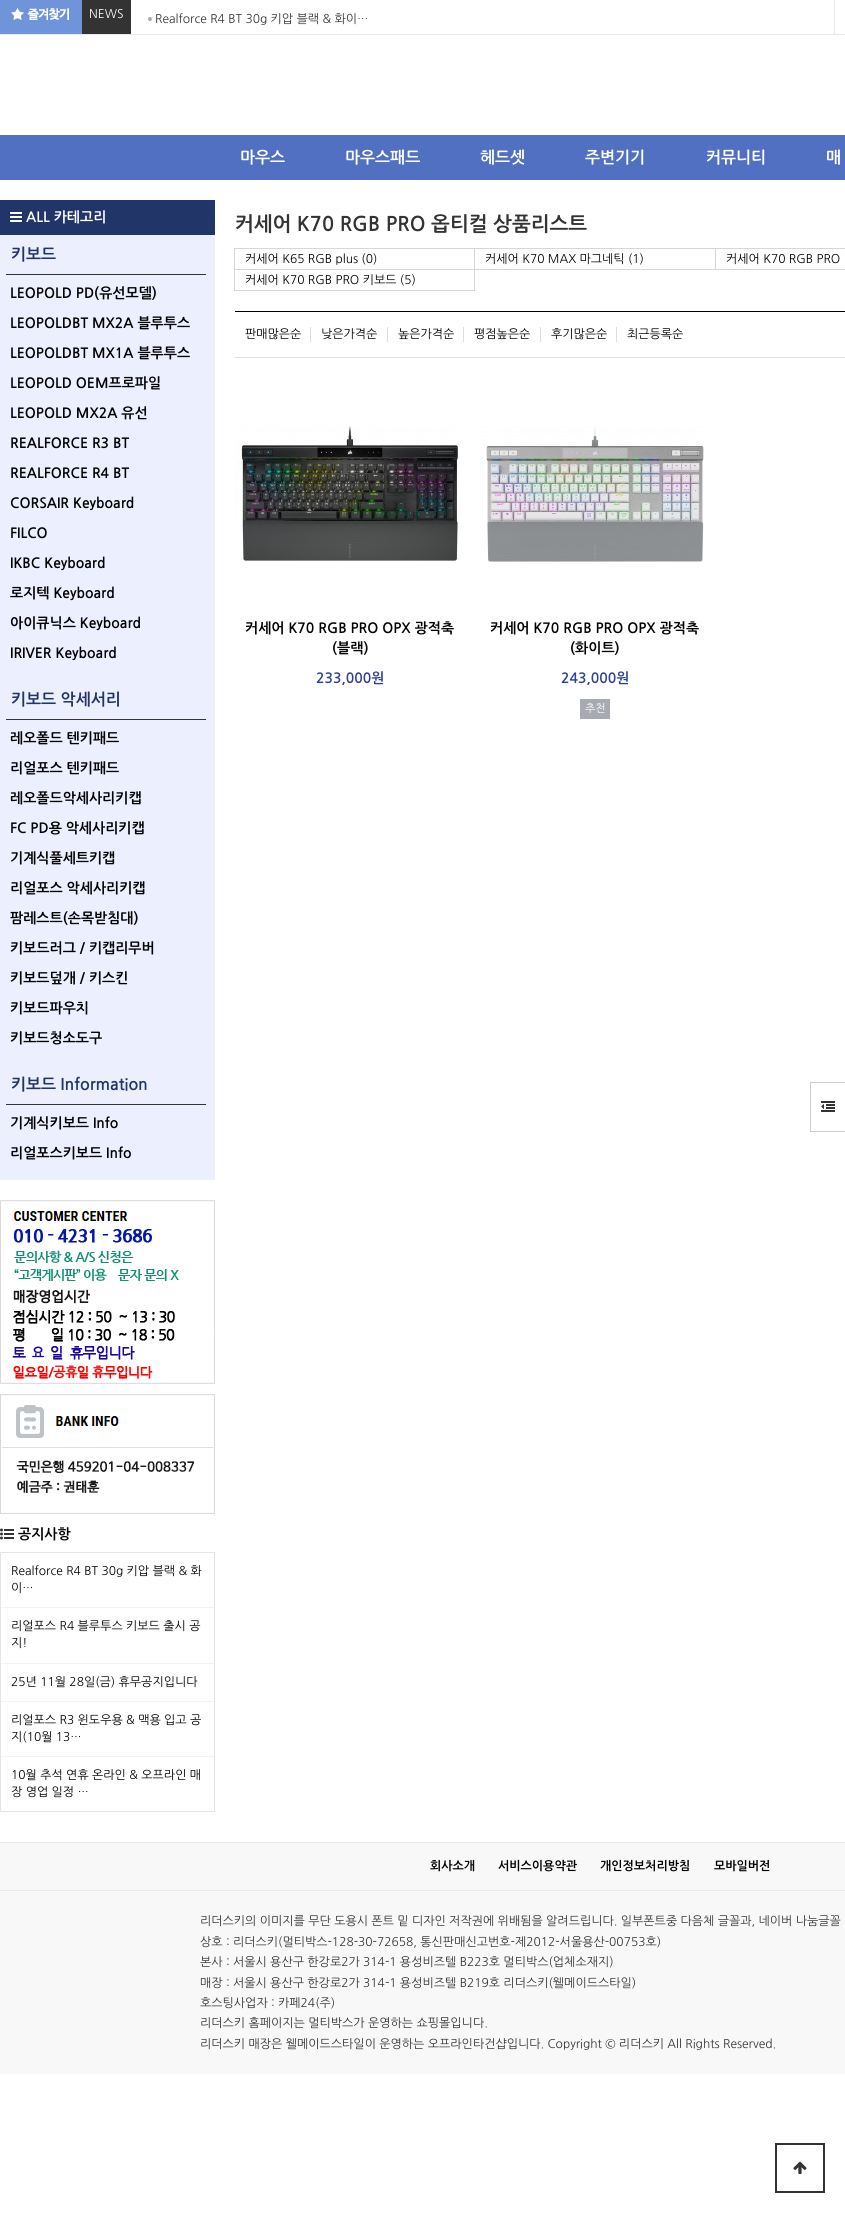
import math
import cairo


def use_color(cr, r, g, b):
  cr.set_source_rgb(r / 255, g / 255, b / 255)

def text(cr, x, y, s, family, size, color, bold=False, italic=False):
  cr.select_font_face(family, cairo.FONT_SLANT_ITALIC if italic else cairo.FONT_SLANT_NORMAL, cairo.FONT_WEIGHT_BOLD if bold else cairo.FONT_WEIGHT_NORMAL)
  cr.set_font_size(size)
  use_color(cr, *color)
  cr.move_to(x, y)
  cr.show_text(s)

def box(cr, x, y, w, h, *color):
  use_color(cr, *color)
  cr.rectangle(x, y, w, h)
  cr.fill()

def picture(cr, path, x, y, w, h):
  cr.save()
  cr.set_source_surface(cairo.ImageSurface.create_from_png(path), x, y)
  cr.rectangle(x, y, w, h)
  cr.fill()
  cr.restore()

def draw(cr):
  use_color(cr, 255, 255, 255)
  cr.paint()
  box(cr, 0, 34, 845, 1, 233, 233, 233)
  box(cr, 0, 0, 82, 34, 111, 148, 217)
  picture(cr, "img_01.png", 11, 8, 58, 12)
  box(cr, 82, 0, 49, 34, 51, 51, 51)
  use_color(cr, 170, 170, 170)
  cr.arc(150, 19, 2, 0, 2 * math.pi)
  cr.fill()
  box(cr, 834, 0, 1, 35, 233, 233, 233)
  box(cr, 0, 135, 845, 45, 81, 112, 194)
  box(cr, 0, 200, 215, 35, 33, 53, 104)
  picture(cr, "img_02.png", 10, 212, 12, 10)
  box(cr, 0, 235, 215, 945, 236, 239, 254)
  box(cr, 6, 274, 200, 1, 51, 51, 51)
  box(cr, 6, 719, 200, 1, 51, 51, 51)
  box(cr, 6, 1104, 200, 1, 51, 51, 51)
  picture(cr, "img_03.png", 0, 1200, 215, 184)
  picture(cr, "img_04.png", 0, 1394, 215, 120)
  picture(cr, "img_05.png", 0, 1528, 14, 12)
  cr.rectangle(0.5, 1552.5, 214, 259)
  use_color(cr, 229, 229, 229)
  cr.set_line_width(1)
  cr.stroke()
  box(cr, 1, 1607, 213, 1, 243, 243, 243)
  box(cr, 1, 1663, 213, 1, 243, 243, 243)
  box(cr, 1, 1701, 213, 1, 243, 243, 243)
  box(cr, 1, 1756, 213, 1, 243, 243, 243)
  cr.rectangle(234.5, 248.5, 240, 21)
  use_color(cr, 215, 215, 215)
  cr.stroke()
  cr.rectangle(474.5, 248.5, 241, 21)
  cr.stroke()
  cr.rectangle(715.5, 248.5, 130, 21)
  cr.stroke()
  cr.rectangle(234.5, 269.5, 240, 21)
  cr.stroke()
  box(cr, 235, 311, 610, 1, 0, 0, 0)
  box(cr, 235, 357, 610, 1, 223, 223, 223)
  box(cr, 310, 327, 1, 15, 221, 221, 221)
  box(cr, 387, 327, 1, 15, 221, 221, 221)
  box(cr, 463, 327, 1, 15, 221, 221, 221)
  box(cr, 540, 327, 1, 15, 221, 221, 221)
  box(cr, 616, 327, 1, 15, 221, 221, 221)
  picture(cr, "img_06.png", 235, 426, 224, 136)
  picture(cr, "img_07.png", 480, 426, 224, 136)
  box(cr, 580, 699, 30, 20, 168, 170, 177)
  box(cr, 810, 1082, 35, 1, 205, 205, 205)
  box(cr, 810, 1131, 35, 1, 205, 205, 205)
  box(cr, 810, 1082, 1, 50, 205, 205, 205)
  picture(cr, "img_08.png", 821, 1101, 14, 11)
  box(cr, 0, 1843, 845, 231, 248, 248, 248)
  box(cr, 0, 1842, 845, 1, 233, 233, 233)
  box(cr, 0, 1890, 845, 1, 233, 233, 233)
  cr.rectangle(776, 2144, 48, 48)
  use_color(cr, 51, 51, 51)
  cr.set_line_width(2)
  cr.stroke()
  picture(cr, "img_09.png", 793, 2161, 14, 14)
  text(cr, 89, 18, "NEWS", "NanumGothic", 12, (255, 255, 255))
  text(cr, 155, 23, "Realforce R4 BT 30g 키압 블랙 & 화이…", "NanumGothic", 12, (51, 51, 51))
  text(cr, 240, 163, "마우스", "NanumGothic", 16, (255, 255, 255), bold=True)
  text(cr, 345, 163, "마우스패드", "NanumGothic", 16, (255, 255, 255), bold=True)
  text(cr, 480, 163, "헤드셋", "NanumGothic", 16, (255, 255, 255), bold=True)
  text(cr, 585, 163, "주변기기", "NanumGothic", 16, (255, 255, 255), bold=True)
  text(cr, 706, 163, "커뮤니티", "NanumGothic", 16, (255, 255, 255), bold=True)
  text(cr, 826, 163, "매", "NanumGothic", 16, (255, 255, 255), bold=True)
  text(cr, 26, 222, "ALL 카테고리", "NanumGothic", 14, (255, 255, 255), bold=True)
  text(cr, 11, 260, "키보드", "NanumGothic", 16, (33, 53, 105), bold=True)
  text(cr, 10, 298, "LEOPOLD PD(유선모델)", "NanumGothic", 14, (0, 0, 0), bold=True)
  text(cr, 10, 328, "LEOPOLDBT MX2A 블루투스", "NanumGothic", 14, (0, 0, 0), bold=True)
  text(cr, 10, 358, "LEOPOLDBT MX1A 블루투스", "NanumGothic", 14, (0, 0, 0), bold=True)
  text(cr, 10, 388, "LEOPOLD OEM프로파일", "NanumGothic", 14, (0, 0, 0), bold=True)
  text(cr, 10, 418, "LEOPOLD MX2A 유선", "NanumGothic", 14, (0, 0, 0), bold=True)
  text(cr, 10, 448, "REALFORCE R3 BT", "NanumGothic", 14, (0, 0, 0), bold=True)
  text(cr, 10, 478, "REALFORCE R4 BT", "NanumGothic", 14, (0, 0, 0), bold=True)
  text(cr, 10, 508, "CORSAIR Keyboard", "NanumGothic", 14, (0, 0, 0), bold=True)
  text(cr, 10, 538, "FILCO", "NanumGothic", 14, (0, 0, 0), bold=True)
  text(cr, 10, 568, "IKBC Keyboard", "NanumGothic", 14, (0, 0, 0), bold=True)
  text(cr, 10, 598, "로지텍 Keyboard", "NanumGothic", 14, (0, 0, 0), bold=True)
  text(cr, 10, 628, "아이큐닉스 Keyboard", "NanumGothic", 14, (0, 0, 0), bold=True)
  text(cr, 10, 658, "IRIVER Keyboard", "NanumGothic", 14, (0, 0, 0), bold=True)
  text(cr, 11, 705, "키보드 악세서리", "NanumGothic", 16, (33, 53, 105), bold=True)
  text(cr, 10, 743, "레오폴드 텐키패드", "NanumGothic", 14, (0, 0, 0), bold=True)
  text(cr, 10, 773, "리얼포스 텐키패드", "NanumGothic", 14, (0, 0, 0), bold=True)
  text(cr, 10, 803, "레오폴드악세사리키캡", "NanumGothic", 14, (0, 0, 0), bold=True)
  text(cr, 10, 833, "FC PD용 악세사리키캡", "NanumGothic", 14, (0, 0, 0), bold=True)
  text(cr, 10, 863, "기계식풀세트키캡", "NanumGothic", 14, (0, 0, 0), bold=True)
  text(cr, 10, 893, "리얼포스 악세사리키캡", "NanumGothic", 14, (0, 0, 0), bold=True)
  text(cr, 10, 923, "팜레스트(손목받침대)", "NanumGothic", 14, (0, 0, 0), bold=True)
  text(cr, 10, 953, "키보드러그 / 키캡리무버", "NanumGothic", 14, (0, 0, 0), bold=True)
  text(cr, 10, 983, "키보드덮개 / 키스킨", "NanumGothic", 14, (0, 0, 0), bold=True)
  text(cr, 10, 1013, "키보드파우치", "NanumGothic", 14, (0, 0, 0), bold=True)
  text(cr, 10, 1043, "키보드청소도구", "NanumGothic", 14, (0, 0, 0), bold=True)
  text(cr, 11, 1090, "키보드 Information", "NanumGothic", 16, (33, 53, 105), bold=True)
  text(cr, 10, 1128, "기계식키보드 Info", "NanumGothic", 14, (0, 0, 0), bold=True)
  text(cr, 10, 1158, "리얼포스키보드 Info", "NanumGothic", 14, (0, 0, 0), bold=True)
  text(cr, 18, 1539, "공지사항", "NanumGothic", 14, (0, 0, 0), bold=True)
  text(cr, 11, 1575, "Realforce R4 BT 30g 키압 블랙 & 화", "NanumGothic", 12, (0, 0, 0))
  text(cr, 11, 1592, "이…", "NanumGothic", 12, (0, 0, 0))
  text(cr, 11, 1630, "리얼포스 R4 블루투스 키보드 출시 공", "NanumGothic", 12, (0, 0, 0))
  text(cr, 11, 1647, "지!", "NanumGothic", 12, (0, 0, 0))
  text(cr, 11, 1686, "25년 11월 28일(금) 휴무공지입니다", "NanumGothic", 12, (0, 0, 0))
  text(cr, 11, 1724, "리얼포스 R3 윈도우용 & 맥용 입고 공", "NanumGothic", 12, (0, 0, 0))
  text(cr, 11, 1741, "지(10월 13…", "NanumGothic", 12, (0, 0, 0))
  text(cr, 11, 1779, "10월 추석 연휴 온라인 & 오프라인 매", "NanumGothic", 12, (0, 0, 0))
  text(cr, 11, 1796, "장 영업 일정 …", "NanumGothic", 12, (0, 0, 0))
  text(cr, 235, 231, "커세어 K70 RGB PRO 옵티컬 상품리스트", "NanumGothic", 20, (51, 51, 51), bold=True)
  text(cr, 245, 263, "커세어 K65 RGB plus (0)", "NanumGothic", 12, (0, 0, 0))
  text(cr, 485, 263, "커세어 K70 MAX 마그네틱 (1)", "NanumGothic", 12, (0, 0, 0))
  text(cr, 726, 263, "커세어 K70 RGB PRO", "NanumGothic", 12, (0, 0, 0))
  text(cr, 245, 284, "커세어 K70 RGB PRO 키보드 (5)", "NanumGothic", 12, (0, 0, 0))
  text(cr, 245, 338, "판매많은순", "NanumGothic", 12, (0, 0, 0))
  text(cr, 321, 338, "낮은가격순", "NanumGothic", 12, (0, 0, 0))
  text(cr, 398, 338, "높은가격순", "NanumGothic", 12, (0, 0, 0))
  text(cr, 474, 338, "평점높은순", "NanumGothic", 12, (0, 0, 0))
  text(cr, 551, 338, "후기많은순", "NanumGothic", 12, (0, 0, 0))
  text(cr, 627, 338, "최근등록순", "NanumGothic", 12, (0, 0, 0))
  text(cr, 245, 633, "커세어 K70 RGB PRO OPX 광적축", "NanumGothic", 14, (0, 0, 0), bold=True)
  text(cr, 332, 653, "(블랙)", "NanumGothic", 14, (0, 0, 0), bold=True)
  text(cr, 316, 683, "233,000원", "NanumGothic", 14, (45, 65, 152), bold=True)
  text(cr, 490, 633, "커세어 K70 RGB PRO OPX 광적축", "NanumGothic", 14, (0, 0, 0), bold=True)
  text(cr, 570, 653, "(화이트)", "NanumGothic", 14, (0, 0, 0), bold=True)
  text(cr, 561, 683, "243,000원", "NanumGothic", 14, (45, 65, 152), bold=True)
  text(cr, 585, 712, "추천", "NanumGothic", 11, (255, 255, 255))
  text(cr, 430, 1870, "회사소개", "NanumGothic", 12, (0, 0, 0), bold=True)
  text(cr, 498, 1870, "서비스이용약관", "NanumGothic", 12, (0, 0, 0), bold=True)
  text(cr, 600, 1870, "개인정보처리방침", "NanumGothic", 12, (0, 0, 0), bold=True)
  text(cr, 714, 1870, "모바일버전", "NanumGothic", 12, (0, 0, 0), bold=True)
  text(cr, 200, 1925, "리더스키의 이미지를 무단 도용시 폰트 밑 디자인 저작권에 위배됨을 알려드립니다. 일부폰트중 다음체 글꼴과, 네이버 나눔글꼴", "NanumGothic", 12, (51, 51, 51))
  text(cr, 200, 1946, "상호 : 리더스키(멀티박스-128-30-72658, 통신판매신고번호-제2012-서울용산-00753호)", "NanumGothic", 12, (51, 51, 51))
  text(cr, 200, 1966, "본사 : 서울시 용산구 한강로2가 314-1 용성비즈텔 B223호 멀티박스(업체소재지)", "NanumGothic", 12, (51, 51, 51))
  text(cr, 200, 1987, "매장 : 서울시 용산구 한강로2가 314-1 용성비즈텔 B219호 리더스키(웰메이드스타일)", "NanumGothic", 12, (51, 51, 51))
  text(cr, 200, 2007, "호스팅사업자 : 카페24(주)", "NanumGothic", 12, (51, 51, 51))
  text(cr, 200, 2027, "리더스키 홈페이지는 멀티박스가 운영하는 쇼핑몰입니다.", "NanumGothic", 12, (51, 51, 51))
  text(cr, 200, 2048, "리더스키 매장은 웰메이드스타일이 운영하는 오프라인타건샵입니다. Copyright © 리더스키 All Rights Reserved.", "NanumGothic", 12, (51, 51, 51))


surface = cairo.ImageSurface(cairo.FORMAT_RGB24, 845, 2213)
cr = cairo.Context(surface)
options = cairo.FontOptions()
options.set_hint_metrics(cairo.HINT_METRICS_OFF)
options.set_hint_style(cairo.HINT_STYLE_NONE)
cr.set_font_options(options)
cr.set_miter_limit(4)
draw(cr)
surface.write_to_png("out.png")
